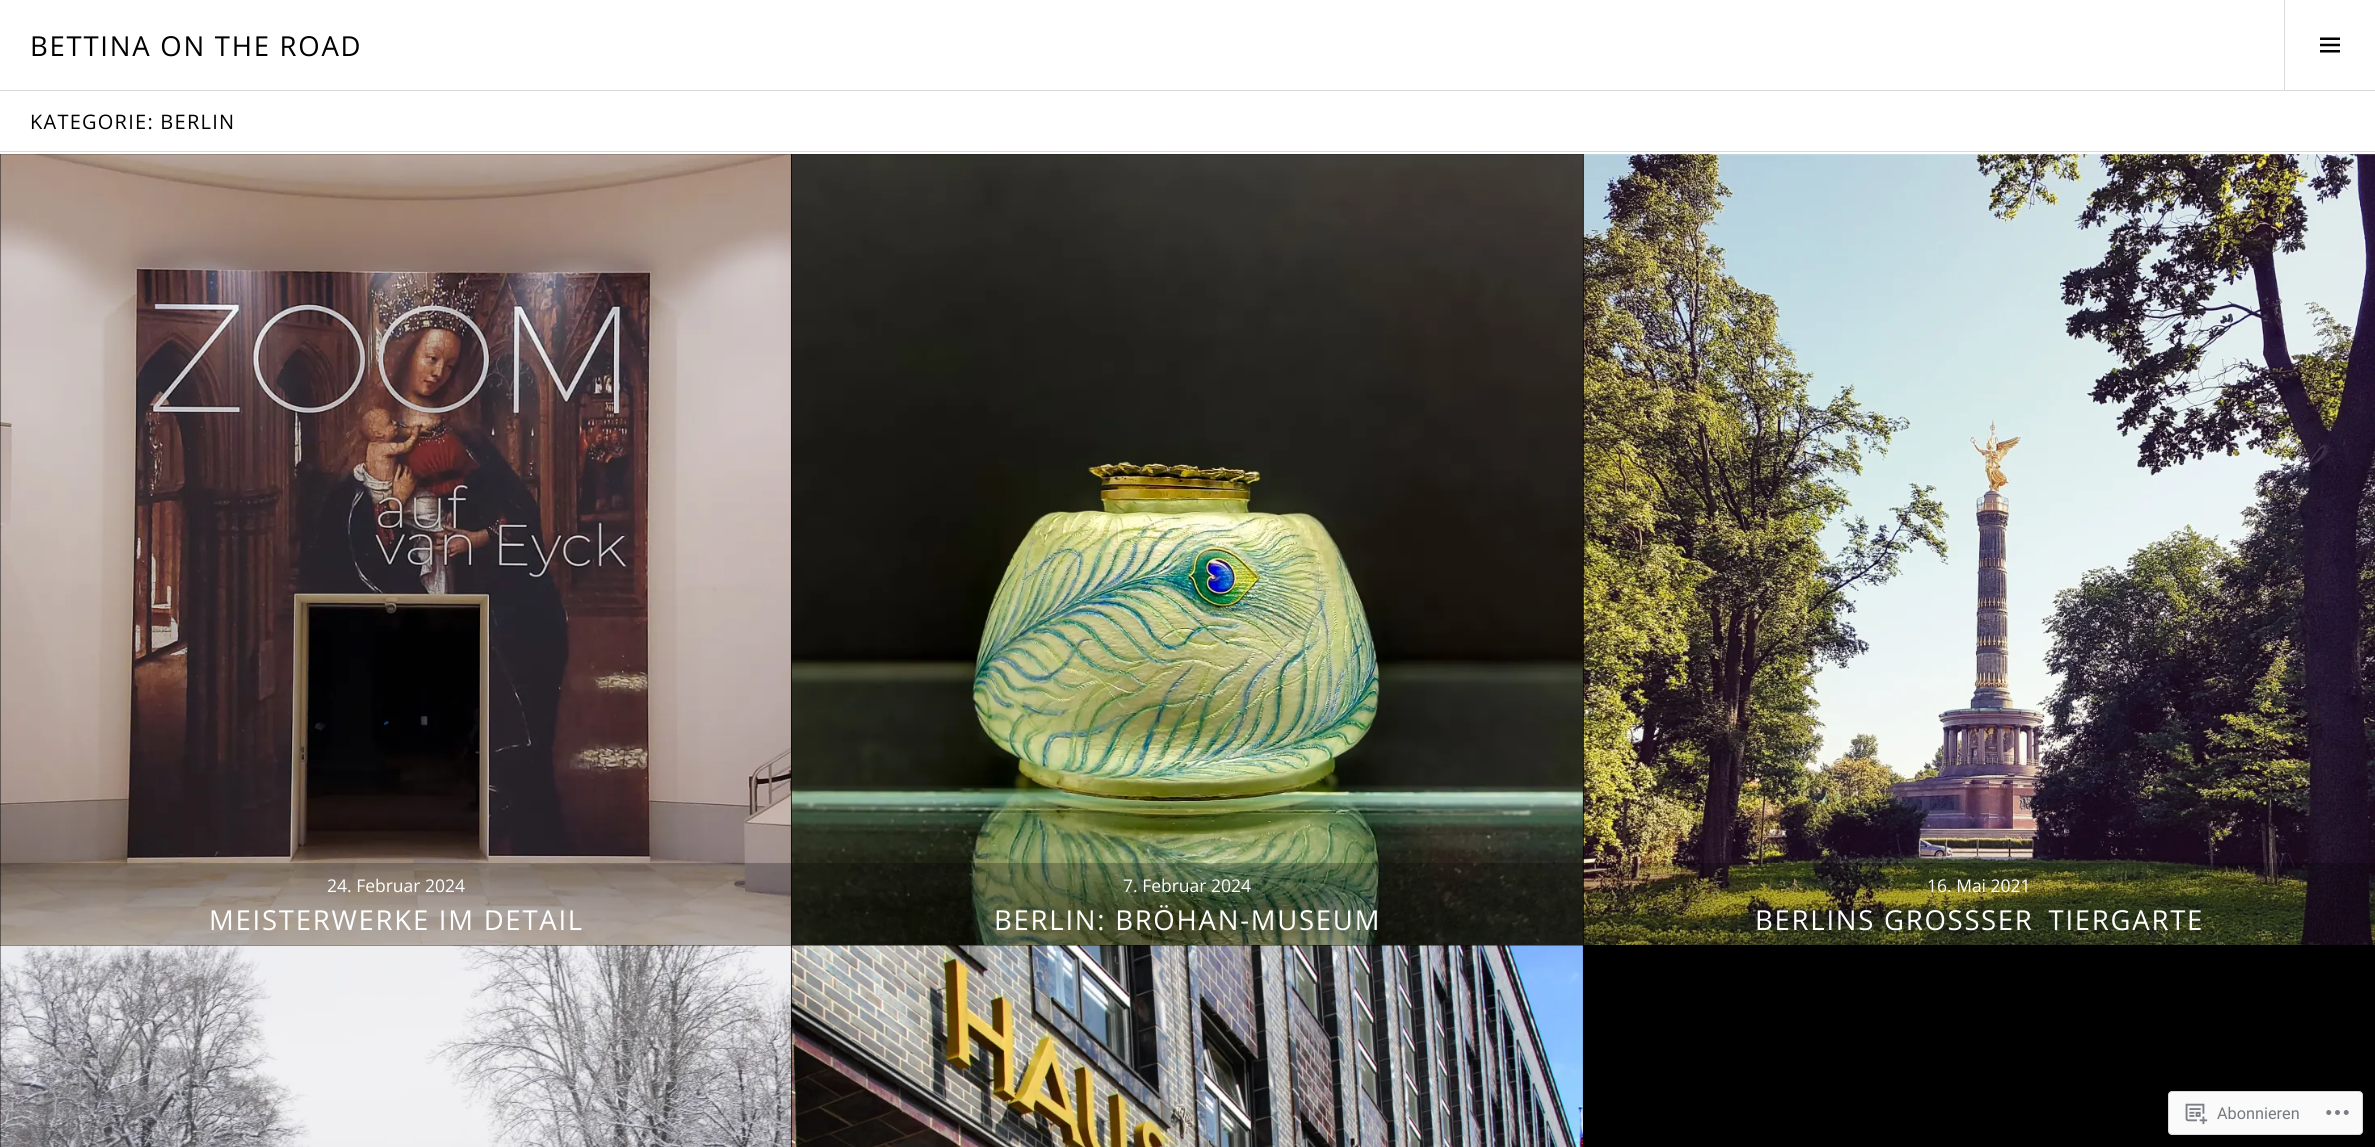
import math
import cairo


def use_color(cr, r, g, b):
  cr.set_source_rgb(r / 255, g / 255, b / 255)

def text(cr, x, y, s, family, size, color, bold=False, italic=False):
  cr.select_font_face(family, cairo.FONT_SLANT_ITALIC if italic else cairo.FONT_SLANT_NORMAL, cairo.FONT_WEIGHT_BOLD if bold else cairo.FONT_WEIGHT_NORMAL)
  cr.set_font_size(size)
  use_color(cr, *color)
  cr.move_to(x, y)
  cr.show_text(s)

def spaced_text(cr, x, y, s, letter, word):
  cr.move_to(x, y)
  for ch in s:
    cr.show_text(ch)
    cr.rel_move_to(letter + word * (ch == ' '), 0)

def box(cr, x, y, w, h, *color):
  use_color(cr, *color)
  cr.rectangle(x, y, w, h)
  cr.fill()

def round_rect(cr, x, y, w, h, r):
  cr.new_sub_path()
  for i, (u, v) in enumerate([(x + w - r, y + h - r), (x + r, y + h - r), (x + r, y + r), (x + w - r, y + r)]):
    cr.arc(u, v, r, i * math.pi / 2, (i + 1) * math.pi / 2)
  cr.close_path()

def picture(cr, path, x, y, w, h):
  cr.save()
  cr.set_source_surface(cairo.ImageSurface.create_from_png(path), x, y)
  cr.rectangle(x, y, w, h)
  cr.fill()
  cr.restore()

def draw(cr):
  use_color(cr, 255, 255, 255)
  cr.paint()
  box(cr, 0, 90, 2375, 1, 217, 217, 217)
  box(cr, 2284, 0, 1, 90, 217, 217, 217)
  picture(cr, "img_01.png", 2320, 37, 20, 16)
  box(cr, 0, 151, 2375, 1, 217, 217, 217)
  box(cr, 0, 154, 1584, 791, 0, 0, 0)
  picture(cr, "img_02.png", 0, 154, 791, 791)
  cr.set_source_rgba(0, 0, 0, 0.25)
  cr.rectangle(0, 863, 791, 82)
  cr.fill()
  picture(cr, "img_03.png", 791, 154, 792, 791)
  picture(cr, "img_04.png", 1583, 154, 792, 791)
  cr.rectangle(791, 863, 793, 82)
  cr.fill()
  cr.rectangle(1584, 863, 791, 82)
  cr.fill()
  box(cr, 0, 945, 2375, 202, 0, 0, 0)
  picture(cr, "img_05.png", 0, 945, 791, 202)
  picture(cr, "img_06.png", 791, 945, 792, 202)
  use_color(cr, 250, 250, 250)
  round_rect(cr, 2168.5, 1091.5, 194, 43, 3.5)
  cr.fill_preserve()
  use_color(cr, 216, 216, 218)
  cr.set_line_width(1)
  cr.stroke()
  picture(cr, "img_07.png", 2185, 1103, 23, 22)
  picture(cr, "img_08.png", 2326, 1110, 23, 5)
  cr.select_font_face("Open Sans")
  cr.set_font_size(27.5)
  use_color(cr, 0, 0, 0)
  spaced_text(cr, 30, 56, "BETTINA ON THE ROAD", 1.75, 0)
  cr.set_font_size(20)
  spaced_text(cr, 30, 129, "KATEGORIE: BERLIN", 1.25, 0)
  text(cr, 327, 892, "24. Februar 2024", "Open Sans", 17.5, (255, 255, 255))
  cr.set_font_size(27.5)
  spaced_text(cr, 209, 930, "MEISTERWERKE IM DETAIL", 1.75, 0)
  text(cr, 1123, 892, "7. Februar 2024", "Open Sans", 17.5, (255, 255, 255))
  cr.set_font_size(27.5)
  spaced_text(cr, 994, 930, "BERLIN: BRÖHAN-MUSEUM", 1.75, 0)
  text(cr, 1927, 892, "16. Mai 2021", "Open Sans", 17.5, (255, 255, 255))
  cr.set_font_size(27.5)
  spaced_text(cr, 1755, 930, "BERLINS GROSS", 1.75, 0)
  spaced_text(cr, 1981, 930, "SER TIERGARTE", 1.75, 6)
  text(cr, 2217, 1119, "Abonnieren", "Roboto", 16.25, (118, 122, 127))


surface = cairo.ImageSurface(cairo.FORMAT_RGB24, 2375, 1147)
cr = cairo.Context(surface)
options = cairo.FontOptions()
options.set_hint_metrics(cairo.HINT_METRICS_OFF)
options.set_hint_style(cairo.HINT_STYLE_NONE)
cr.set_font_options(options)
cr.set_miter_limit(4)
draw(cr)
surface.write_to_png("out.png")
